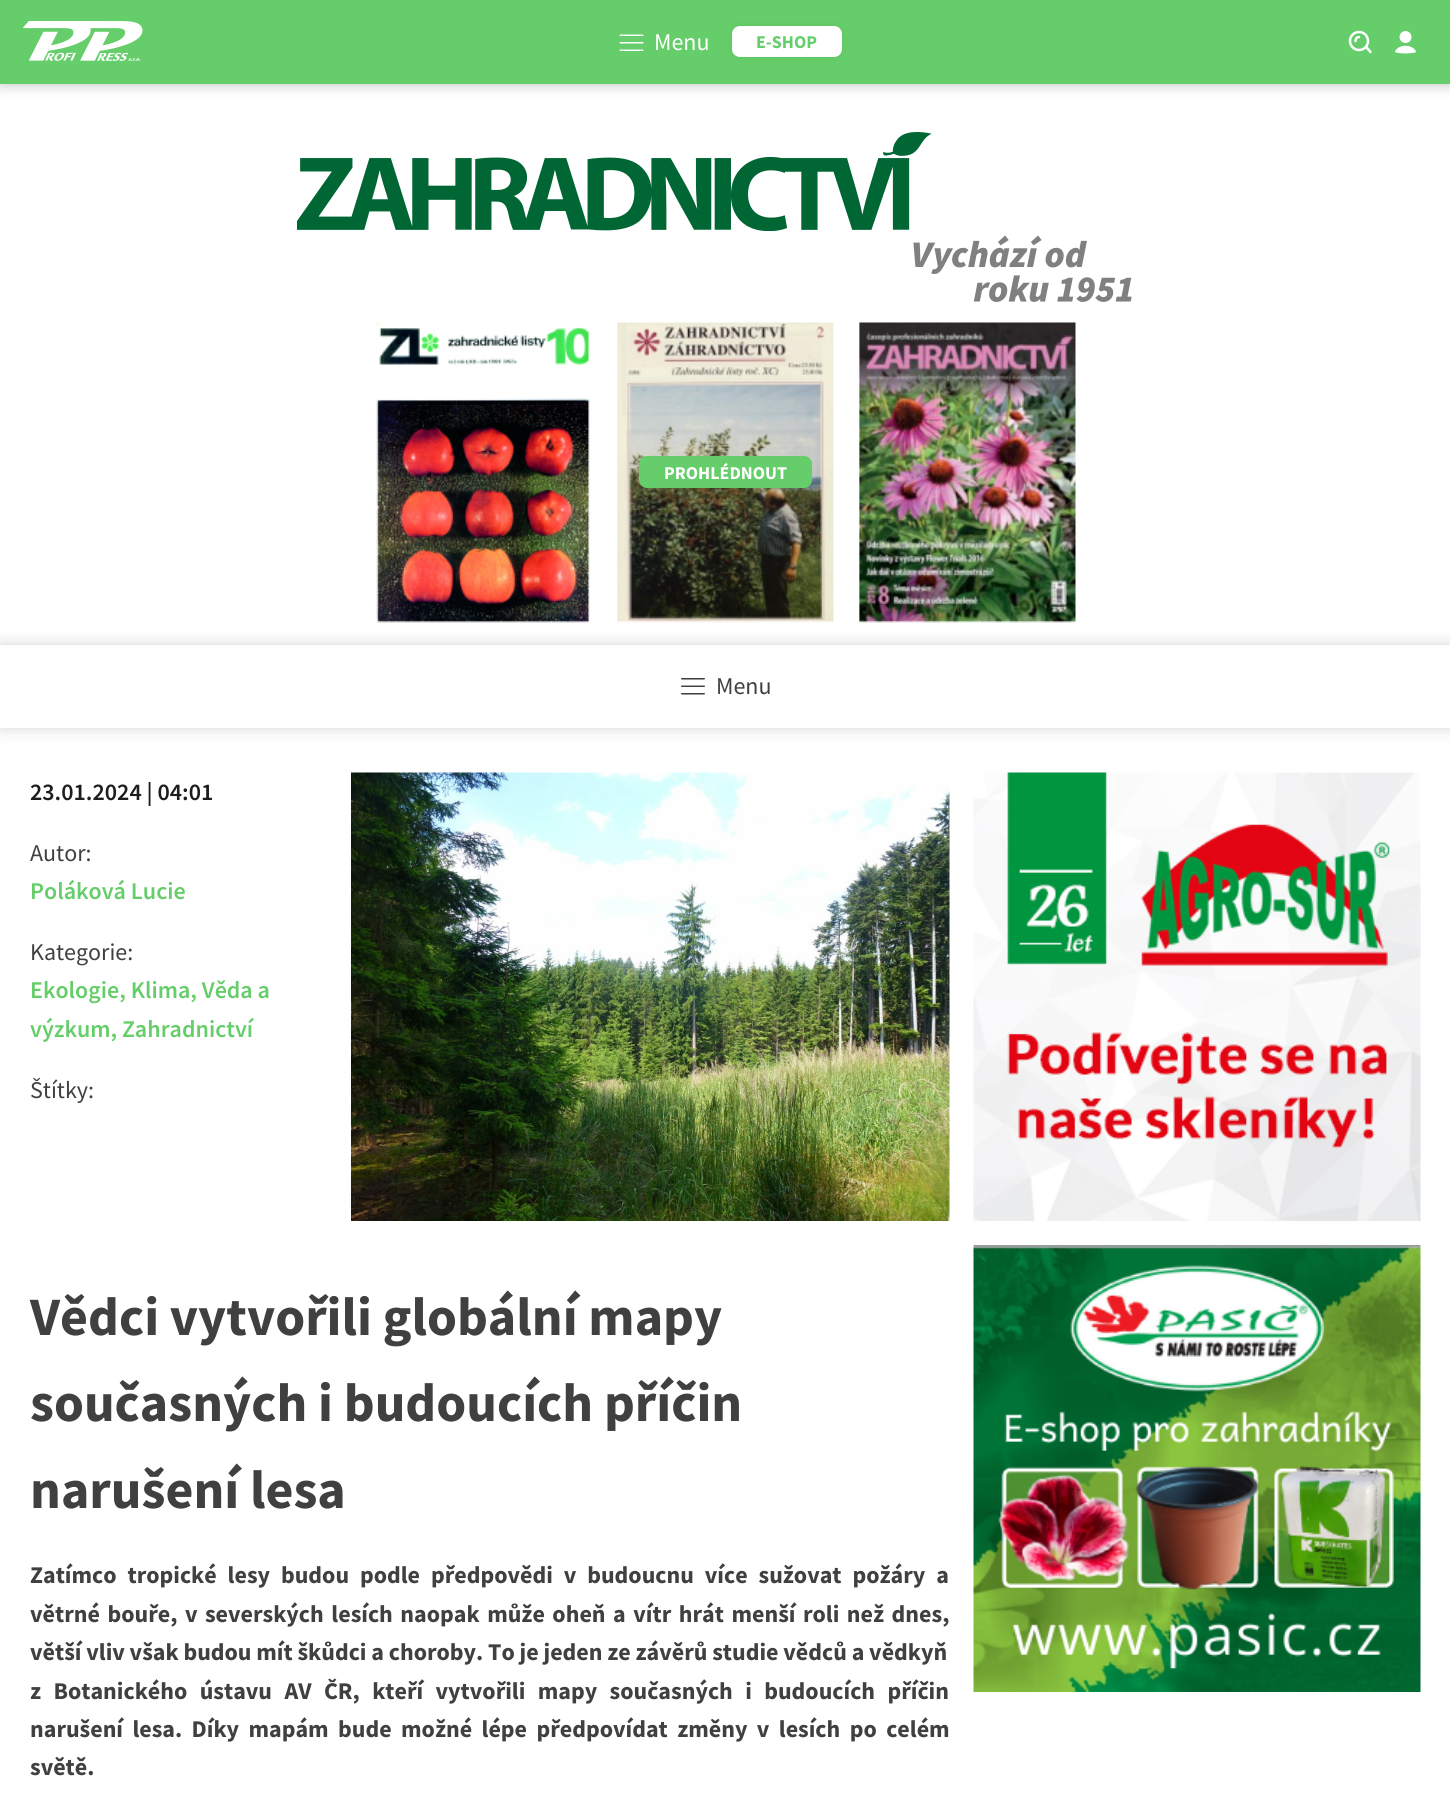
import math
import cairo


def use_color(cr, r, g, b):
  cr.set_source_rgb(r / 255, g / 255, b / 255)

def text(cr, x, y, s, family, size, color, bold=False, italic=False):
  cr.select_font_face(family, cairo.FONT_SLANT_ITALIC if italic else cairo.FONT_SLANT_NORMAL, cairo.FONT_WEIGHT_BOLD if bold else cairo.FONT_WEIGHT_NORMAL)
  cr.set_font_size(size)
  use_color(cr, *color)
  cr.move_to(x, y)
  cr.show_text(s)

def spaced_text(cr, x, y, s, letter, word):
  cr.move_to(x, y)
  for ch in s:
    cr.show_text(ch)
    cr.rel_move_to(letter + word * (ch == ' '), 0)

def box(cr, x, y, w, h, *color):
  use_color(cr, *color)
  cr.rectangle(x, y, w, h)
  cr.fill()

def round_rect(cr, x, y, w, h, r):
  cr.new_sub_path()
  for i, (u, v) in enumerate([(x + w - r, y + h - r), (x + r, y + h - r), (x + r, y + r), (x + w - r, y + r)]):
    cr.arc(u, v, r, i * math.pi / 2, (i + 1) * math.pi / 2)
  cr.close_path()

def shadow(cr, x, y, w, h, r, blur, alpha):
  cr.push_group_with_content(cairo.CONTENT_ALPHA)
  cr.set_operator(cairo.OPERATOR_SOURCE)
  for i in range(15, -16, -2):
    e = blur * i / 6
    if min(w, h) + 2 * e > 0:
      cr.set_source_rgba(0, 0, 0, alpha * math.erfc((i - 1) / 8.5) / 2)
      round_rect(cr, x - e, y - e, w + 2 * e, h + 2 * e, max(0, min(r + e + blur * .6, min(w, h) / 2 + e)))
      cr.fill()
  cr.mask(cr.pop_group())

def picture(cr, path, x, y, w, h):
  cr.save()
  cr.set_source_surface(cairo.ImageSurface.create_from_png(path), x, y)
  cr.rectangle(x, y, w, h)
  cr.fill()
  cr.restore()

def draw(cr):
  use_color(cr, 255, 255, 255)
  cr.paint()
  use_color(cr, 0, 0, 0)
  shadow(cr, 0, 0, 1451, 84, 0, 7.5, 0.25)
  box(cr, 0, 0, 1450, 84, 101, 205, 105)
  picture(cr, "img_01.png", 23, 21, 120, 40)
  picture(cr, "img_02.png", 619, 34, 25, 17)
  use_color(cr, 0, 0, 0)
  shadow(cr, 740, 33, 94, 17, 0, 7.5, 0.15)
  use_color(cr, 255, 255, 255)
  round_rect(cr, 733, 27, 108, 29, 7)
  cr.fill_preserve()
  cr.stroke()
  cr.arc(1359, 41, 9, 0, 2 * math.pi)
  cr.set_line_width(2.5)
  cr.stroke()
  cr.new_path()
  cr.move_to(1359, 37)
  cr.curve_to(1357, 37, 1355.5, 38.5, 1355.5, 41)
  cr.move_to(1370.5, 52)
  cr.line_to(1367, 48)
  cr.set_line_cap(cairo.LINE_CAP_ROUND)
  cr.stroke()
  picture(cr, "img_03.png", 1395, 31, 21, 23)
  picture(cr, "img_04.png", 297, 132, 835, 170)
  picture(cr, "img_05.png", 376, 322, 700, 301)
  use_color(cr, 101, 205, 105)
  round_rect(cr, 639, 456, 173, 32, 8)
  cr.fill()
  use_color(cr, 29, 29, 27)
  shadow(cr, 0, 645, 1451, 83, 0, 7.5, 0.2)
  box(cr, 0, 645, 1450, 83, 255, 255, 255)
  picture(cr, "img_06.png", 681, 678, 24, 17)
  picture(cr, "img_07.png", 351, 772, 599, 449)
  picture(cr, "img_08.png", 973, 772, 448, 449)
  picture(cr, "img_09.png", 973, 1245, 448, 447)
  text(cr, 654, 50, "Menu", "Source Sans Pro", 24, (255, 255, 255))
  text(cr, 756, 48, "E-SHOP", "Source Sans Pro", 18, (101, 205, 105), bold=True)
  text(cr, 664, 479, "PROHLÉDNOUT", "Source Sans Pro", 18, (255, 255, 255), bold=True)
  text(cr, 716, 694, "Menu", "Source Sans Pro", 24, (64, 64, 64))
  text(cr, 30, 800, "23.01.2024 | 04:01", "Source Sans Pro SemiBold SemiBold", 24, (29, 29, 27))
  text(cr, 30, 861, "Autor:", "Source Sans Pro", 24, (64, 64, 64))
  text(cr, 30, 899, "Poláková Lucie", "Source Sans Pro SemiBold SemiBold", 24, (101, 205, 105))
  text(cr, 30, 960, "Kategorie:", "Source Sans Pro", 24, (64, 64, 64))
  text(cr, 30, 998, "Ekologie, Klima, Věda a", "Source Sans Pro SemiBold SemiBold", 24, (101, 205, 105))
  text(cr, 30, 1037, "výzkum, Zahradnictví", "Source Sans Pro SemiBold SemiBold", 24, (101, 205, 105))
  text(cr, 30, 1098, "Štítky:", "Source Sans Pro", 24, (64, 64, 64))
  text(cr, 30, 1335, "Vědci vytvořili globální mapy", "Source Sans Pro", 54, (64, 64, 64), bold=True)
  text(cr, 30, 1421, "současných i budoucích příčin", "Source Sans Pro", 54, (64, 64, 64), bold=True)
  text(cr, 30, 1508, "narušení lesa", "Source Sans Pro", 54, (64, 64, 64), bold=True)
  cr.set_font_size(24)
  spaced_text(cr, 30, 1583, "Zatímco tropické lesy budou podle předpovědi v budoucnu více sužovat požáry a", 0, 6.1)
  spaced_text(cr, 30, 1622, "větrné bouře, v severských lesích naopak může oheň a vítr hrát menší roli než dnes,", 0, 2.75)
  text(cr, 30, 1660, "větší vliv však budou mít škůdci a choroby. To je jeden ze závěrů studie vědců a vědkyň", "Source Sans Pro", 24, (64, 64, 64), bold=True)
  spaced_text(cr, 30, 1699, "z Botanického ústavu AV ČR, kteří vytvořili mapy současných i budoucích příčin", 0, 7.6)
  spaced_text(cr, 30, 1737, "narušení lesa. Díky mapám bude možné lépe předpovídat změny v lesích po celém", 0, 4.6)
  text(cr, 30, 1775, "světě.", "Source Sans Pro", 24, (64, 64, 64), bold=True)


surface = cairo.ImageSurface(cairo.FORMAT_RGB24, 1450, 1818)
cr = cairo.Context(surface)
options = cairo.FontOptions()
options.set_hint_metrics(cairo.HINT_METRICS_OFF)
options.set_hint_style(cairo.HINT_STYLE_NONE)
cr.set_font_options(options)
cr.set_miter_limit(4)
draw(cr)
surface.write_to_png("out.png")
